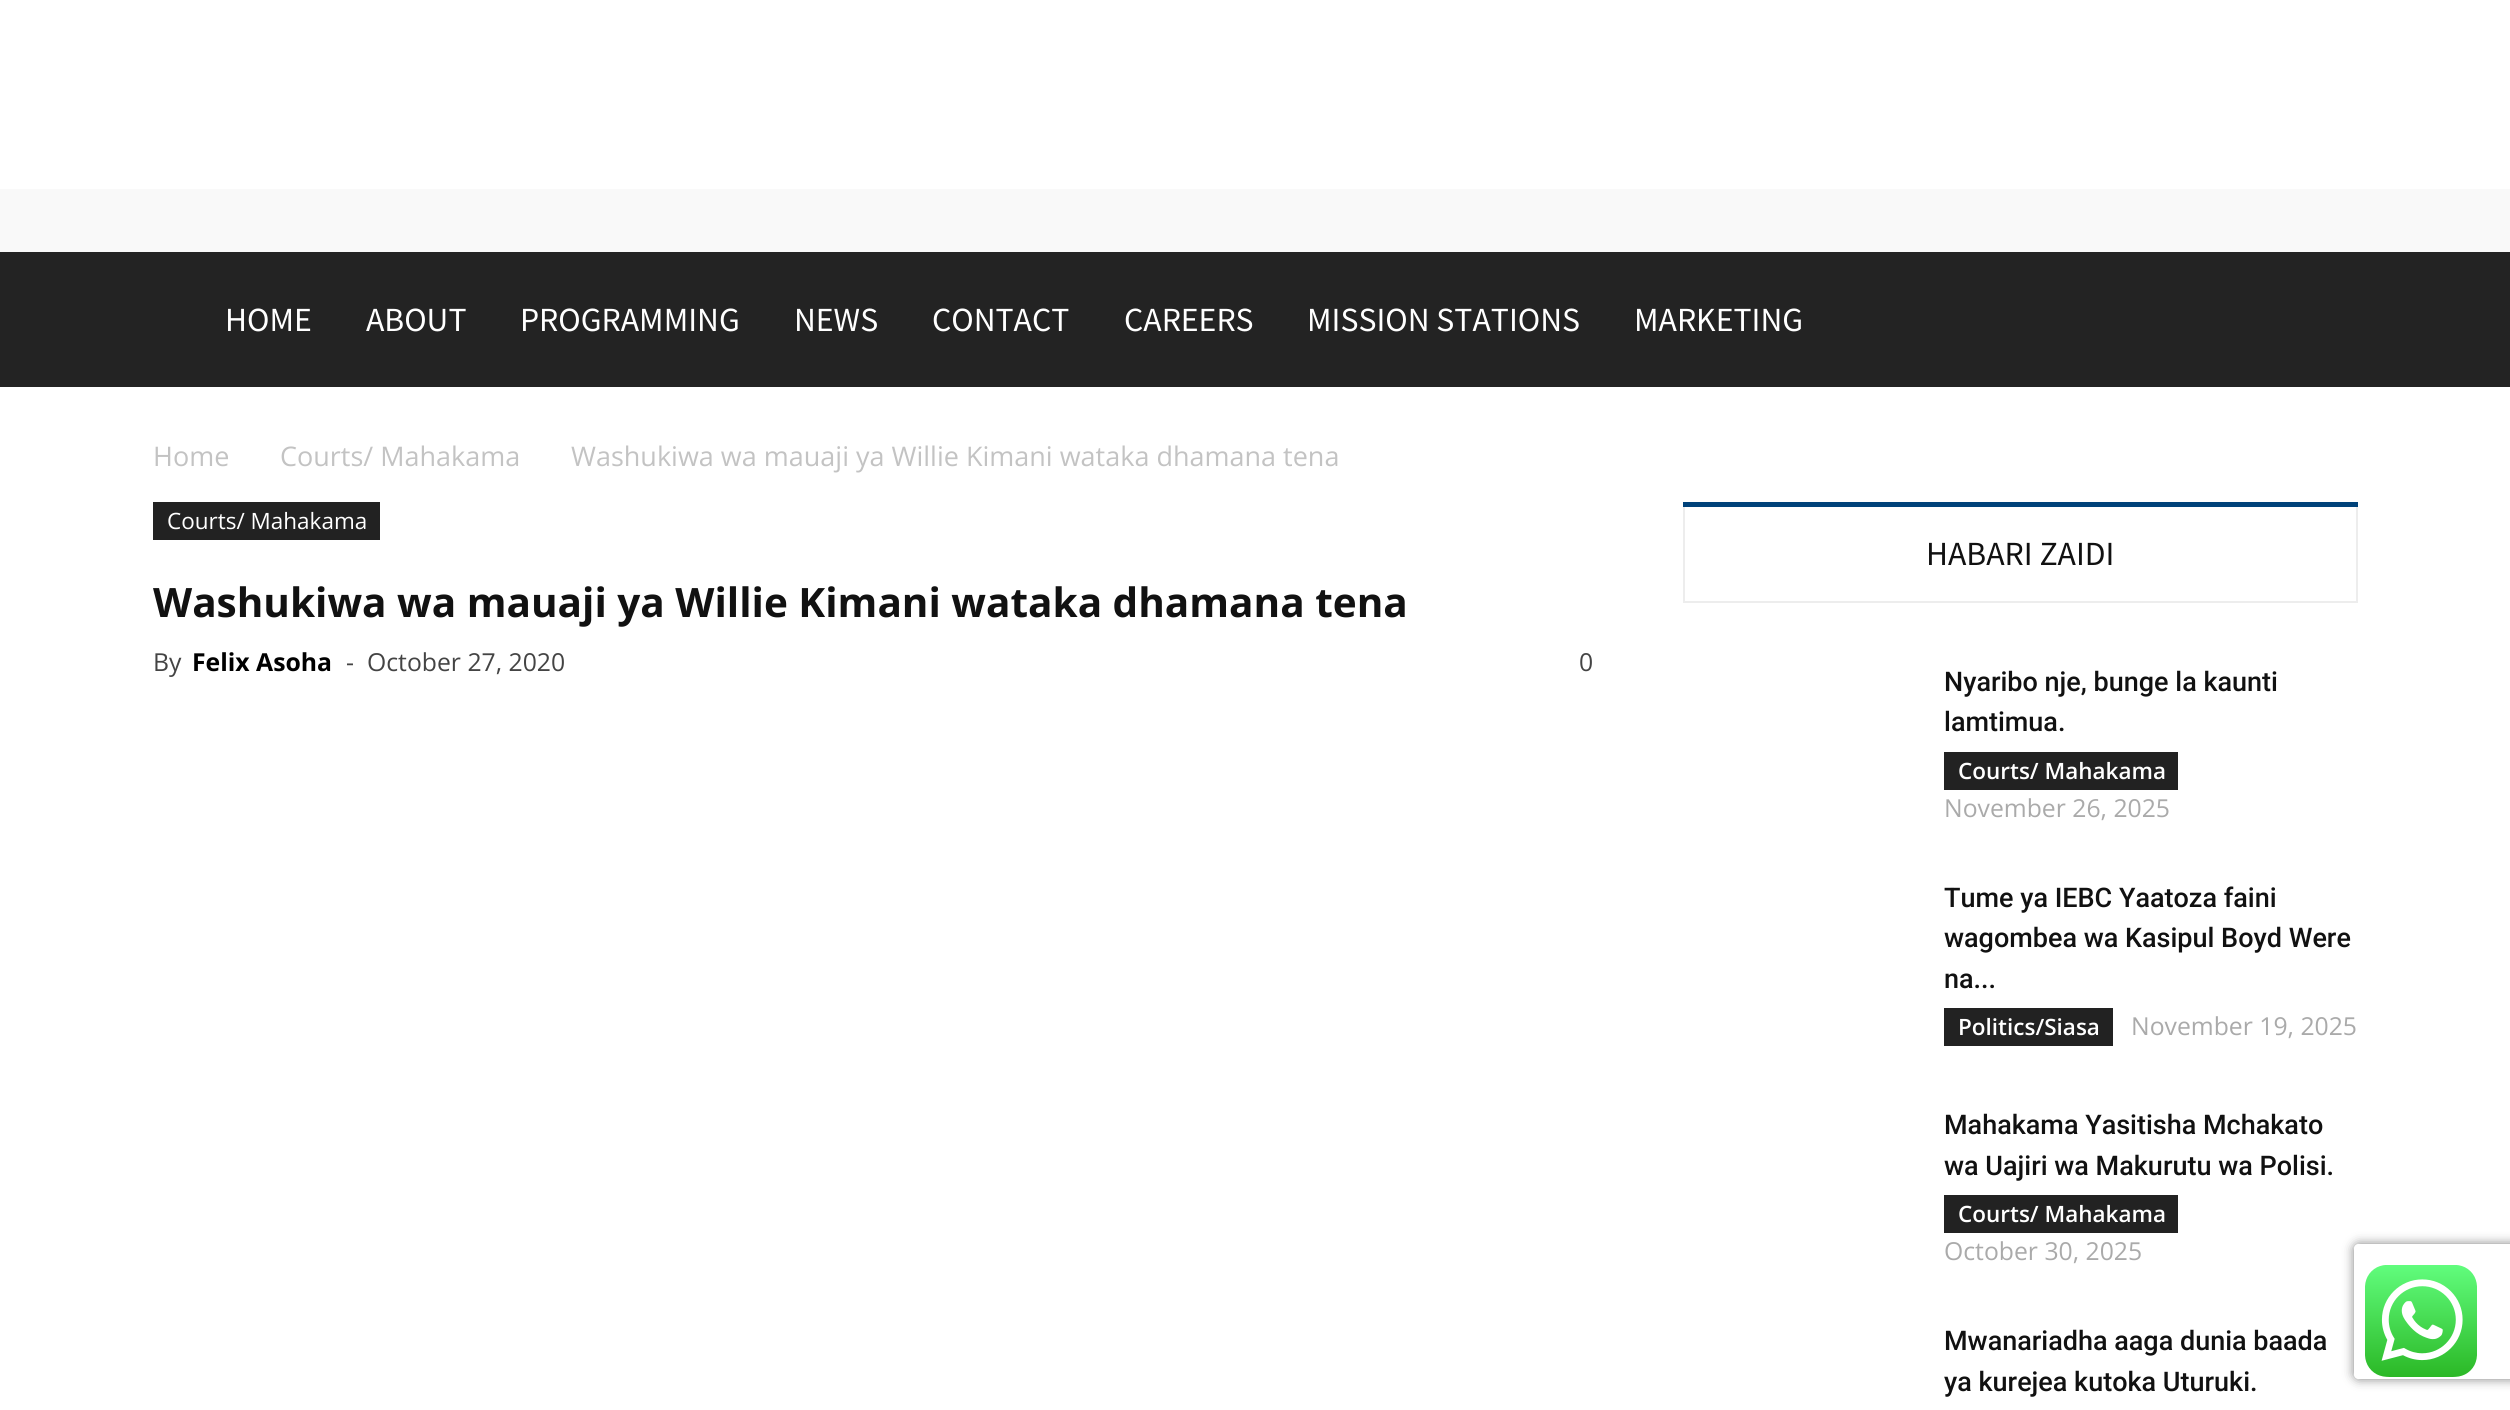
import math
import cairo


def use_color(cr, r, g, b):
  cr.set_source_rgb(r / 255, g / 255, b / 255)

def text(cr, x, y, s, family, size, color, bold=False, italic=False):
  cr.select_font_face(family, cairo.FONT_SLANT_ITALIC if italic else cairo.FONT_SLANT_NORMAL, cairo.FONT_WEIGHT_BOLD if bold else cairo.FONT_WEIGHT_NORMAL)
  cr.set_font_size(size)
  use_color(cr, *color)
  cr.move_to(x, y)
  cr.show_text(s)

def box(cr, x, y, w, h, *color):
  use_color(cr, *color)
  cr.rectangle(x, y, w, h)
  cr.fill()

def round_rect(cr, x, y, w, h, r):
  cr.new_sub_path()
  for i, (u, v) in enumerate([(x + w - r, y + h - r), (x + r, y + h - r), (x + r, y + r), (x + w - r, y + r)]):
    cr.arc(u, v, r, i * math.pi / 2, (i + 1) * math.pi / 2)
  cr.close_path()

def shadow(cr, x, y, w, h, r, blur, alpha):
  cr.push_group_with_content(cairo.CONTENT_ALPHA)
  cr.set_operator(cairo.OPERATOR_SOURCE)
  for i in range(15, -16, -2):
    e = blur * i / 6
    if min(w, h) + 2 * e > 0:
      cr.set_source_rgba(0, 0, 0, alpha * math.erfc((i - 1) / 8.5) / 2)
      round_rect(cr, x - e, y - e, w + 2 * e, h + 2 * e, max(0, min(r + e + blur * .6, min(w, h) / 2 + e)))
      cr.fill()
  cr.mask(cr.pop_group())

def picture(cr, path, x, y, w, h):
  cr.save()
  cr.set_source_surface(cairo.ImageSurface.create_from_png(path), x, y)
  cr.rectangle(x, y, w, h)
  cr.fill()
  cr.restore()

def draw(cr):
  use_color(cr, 255, 255, 255)
  cr.paint()
  box(cr, 0, 189, 2510, 63, 249, 249, 249)
  box(cr, 0, 252, 2510, 135, 35, 35, 35)
  box(cr, 153, 502, 227, 38, 34, 34, 34)
  cr.rectangle(1684, 503, 673, 99)
  use_color(cr, 237, 237, 237)
  cr.stroke()
  box(cr, 1683, 502, 675, 5, 0, 66, 122)
  box(cr, 1944, 752, 234, 38, 34, 34, 34)
  box(cr, 1944, 1008, 169, 38, 34, 34, 34)
  box(cr, 1944, 1195, 234, 38, 34, 34, 34)
  cr.save()
  cr.set_fill_rule(cairo.FILL_RULE_EVEN_ODD)
  cr.new_path()
  cr.move_to(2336, 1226)
  cr.line_to(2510, 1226)
  cr.line_to(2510, 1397)
  cr.line_to(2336, 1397)
  cr.close_path()
  cr.move_to(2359, 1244)
  cr.line_to(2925, 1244)
  cr.curve_to(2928, 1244, 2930, 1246, 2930, 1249)
  cr.line_to(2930, 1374)
  cr.curve_to(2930, 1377, 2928, 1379, 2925, 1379)
  cr.line_to(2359, 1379)
  cr.curve_to(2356, 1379, 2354, 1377, 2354, 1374)
  cr.line_to(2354, 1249)
  cr.curve_to(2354, 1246, 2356, 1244, 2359, 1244)
  cr.close_path()
  cr.clip()
  use_color(cr, 128, 128, 128)
  shadow(cr, 2354, 1244, 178, 135, 5, 5.5, 1)
  cr.restore()
  picture(cr, "img_01.png", 2365, 1265, 112, 112)
  text(cr, 225, 331, "HOME", "Source Sans Pro", 33.75, (255, 255, 255))
  text(cr, 366, 331, "ABOUT", "Source Sans Pro", 33.75, (255, 255, 255))
  text(cr, 520, 331, "PROGRAMMING", "Source Sans Pro", 33.75, (255, 255, 255))
  text(cr, 794, 331, "NEWS", "Source Sans Pro", 33.75, (255, 255, 255))
  text(cr, 932, 331, "CONTACT", "Source Sans Pro", 33.75, (255, 255, 255))
  text(cr, 1124, 331, "CAREERS", "Source Sans Pro", 33.75, (255, 255, 255))
  text(cr, 1307, 331, "MISSION STATIONS", "Source Sans Pro", 33.75, (255, 255, 255))
  text(cr, 1634, 331, "MARKETING", "Source Sans Pro", 33.75, (255, 255, 255))
  text(cr, 153, 466, "Home", "Open Sans", 27, (195, 195, 195))
  text(cr, 280, 466, "Courts/ Mahakama", "Open Sans", 27, (195, 195, 195))
  text(cr, 571, 466, "Washukiwa wa mauaji ya Willie Kimani wataka dhamana tena", "Open Sans", 27, (195, 195, 195))
  text(cr, 167, 529, "Courts/ Mahakama", "Open Sans", 22.5, (255, 255, 255))
  text(cr, 153, 617, "Washukiwa wa mauaji ya Willie Kimani wataka dhamana tena", "Open Sans", 40.5, (17, 17, 17), bold=True)
  text(cr, 153, 671, "By", "Open Sans", 24.75, (68, 68, 68))
  text(cr, 192, 671, "Felix Asoha", "Open Sans", 24.75, (0, 0, 0), bold=True)
  text(cr, 346, 671, "-", "Open Sans", 24.75, (68, 68, 68))
  text(cr, 367, 671, "October 27, 2020", "Open Sans", 24.75, (68, 68, 68))
  text(cr, 1579, 671, "0", "Open Sans", 24.75, (68, 68, 68))
  text(cr, 1926, 565, "HABARI ZAIDI", "Source Sans Pro", 33.75, (17, 17, 17))
  text(cr, 1944, 691, "Nyaribo nje, bunge la kaunti", "Roboto Medium", 27, (17, 17, 17))
  text(cr, 1944, 731, "lamtimua.", "Roboto Medium", 27, (17, 17, 17))
  text(cr, 1958, 779, "Courts/ Mahakama", "Open Sans SemiBold", 22.5, (255, 255, 255))
  text(cr, 1944, 817, "November 26, 2025", "Open Sans", 24.75, (170, 170, 170))
  text(cr, 1944, 907, "Tume ya IEBC Yaatoza faini", "Roboto Medium", 27, (17, 17, 17))
  text(cr, 1944, 947, "wagombea wa Kasipul Boyd Were", "Roboto Medium", 27, (17, 17, 17))
  text(cr, 1944, 988, "na...", "Roboto Medium", 27, (17, 17, 17))
  text(cr, 1958, 1035, "Politics/Siasa", "Open Sans SemiBold", 22.5, (255, 255, 255))
  text(cr, 2131, 1035, "November 19, 2025", "Open Sans", 24.75, (170, 170, 170))
  text(cr, 1944, 1134, "Mahakama Yasitisha Mchakato", "Roboto Medium", 27, (17, 17, 17))
  text(cr, 1944, 1175, "wa Uajiri wa Makurutu wa Polisi.", "Roboto Medium", 27, (17, 17, 17))
  text(cr, 1958, 1222, "Courts/ Mahakama", "Open Sans SemiBold", 22.5, (255, 255, 255))
  text(cr, 1944, 1260, "October 30, 2025", "Open Sans", 24.75, (170, 170, 170))
  text(cr, 1944, 1350, "Mwanariadha aaga dunia baada", "Roboto Medium", 27, (17, 17, 17))
  text(cr, 1944, 1391, "ya kurejea kutoka Uturuki.", "Roboto Medium", 27, (17, 17, 17))


surface = cairo.ImageSurface(cairo.FORMAT_RGB24, 2510, 1410)
cr = cairo.Context(surface)
options = cairo.FontOptions()
options.set_hint_metrics(cairo.HINT_METRICS_OFF)
options.set_hint_style(cairo.HINT_STYLE_NONE)
cr.set_font_options(options)
cr.set_miter_limit(4)
draw(cr)
surface.write_to_png("out.png")
